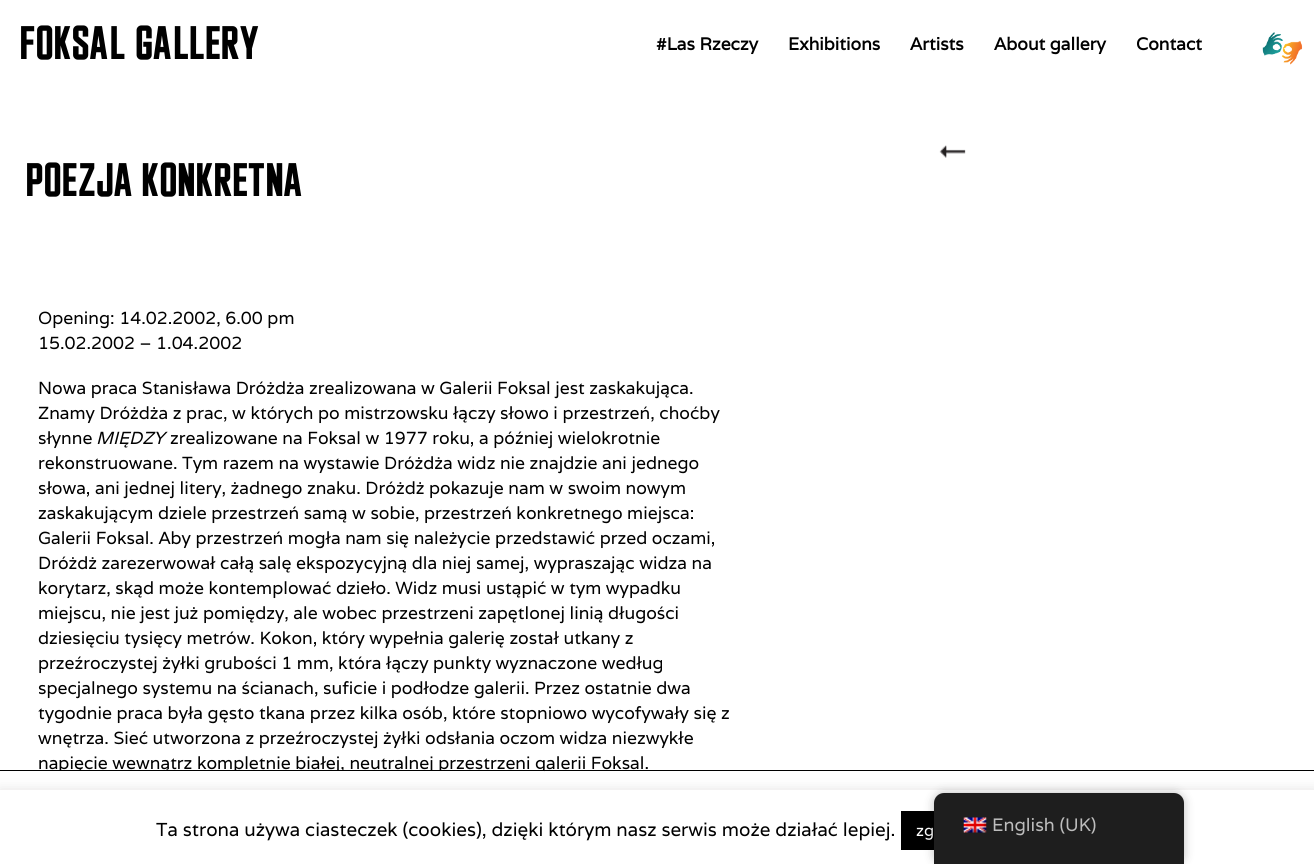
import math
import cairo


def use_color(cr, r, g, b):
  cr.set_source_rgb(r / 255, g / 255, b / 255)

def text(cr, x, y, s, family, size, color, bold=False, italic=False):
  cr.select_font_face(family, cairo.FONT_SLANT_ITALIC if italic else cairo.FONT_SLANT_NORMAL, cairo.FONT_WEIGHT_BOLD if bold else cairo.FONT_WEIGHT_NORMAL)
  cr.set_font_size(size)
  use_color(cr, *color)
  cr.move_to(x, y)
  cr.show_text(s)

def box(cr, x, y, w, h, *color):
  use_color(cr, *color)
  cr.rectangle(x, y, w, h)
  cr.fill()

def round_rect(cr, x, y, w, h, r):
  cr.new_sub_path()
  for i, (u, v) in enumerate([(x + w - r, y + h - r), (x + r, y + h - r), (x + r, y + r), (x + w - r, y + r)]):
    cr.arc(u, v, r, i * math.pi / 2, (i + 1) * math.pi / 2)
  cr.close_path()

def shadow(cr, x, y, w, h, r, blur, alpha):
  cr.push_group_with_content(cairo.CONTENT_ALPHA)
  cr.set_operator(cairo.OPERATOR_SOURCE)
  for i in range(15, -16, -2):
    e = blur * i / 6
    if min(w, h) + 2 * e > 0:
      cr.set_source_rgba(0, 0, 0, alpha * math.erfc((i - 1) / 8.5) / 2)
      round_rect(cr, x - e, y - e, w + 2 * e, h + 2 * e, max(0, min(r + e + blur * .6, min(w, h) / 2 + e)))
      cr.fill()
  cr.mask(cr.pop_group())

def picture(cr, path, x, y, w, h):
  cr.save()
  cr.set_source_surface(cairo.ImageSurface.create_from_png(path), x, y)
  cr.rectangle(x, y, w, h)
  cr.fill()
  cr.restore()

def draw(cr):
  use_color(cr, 255, 255, 255)
  cr.paint()
  picture(cr, "img_01.png", 939, 145, 27, 13)
  box(cr, 0, 770, 1314, 1, 0, 0, 0)
  picture(cr, "img_03.png", 1262, 32, 41, 33)
  text(cr, 19, 59, "FOKSAL GALLERY", "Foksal", 43.75, (0, 0, 0))
  text(cr, 656, 50, "#Las Rzeczy", "Varela", 17.5, (0, 0, 0), bold=True)
  text(cr, 788, 50, "Exhibitions", "Varela", 17.5, (0, 0, 0), bold=True)
  text(cr, 910, 50, "Artists", "Varela", 17.5, (0, 0, 0), bold=True)
  text(cr, 994, 50, "About gallery", "Varela", 17.5, (0, 0, 0), bold=True)
  text(cr, 1136, 50, "Contact", "Varela", 17.5, (0, 0, 0), bold=True)
  text(cr, 25, 196, "Poezja konkretna", "Foksal", 43.75, (0, 0, 0))
  text(cr, 38, 324, "Opening: 14.02.2002, 6.00 pm", "Varela", 17.5, (0, 0, 0))
  text(cr, 38, 349, "15.02.2002 – 1.04.2002", "Varela", 17.5, (0, 0, 0))
  text(cr, 38, 394, "Nowa praca Stanisława Dróżdża zrealizowana w Galerii Foksal jest zaskakująca.", "Varela", 17.5, (0, 0, 0))
  text(cr, 38, 419, "Znamy Dróżdża z prac, w których po mistrzowsku łączy słowo i przestrzeń, choćby", "Varela", 17.5, (0, 0, 0))
  text(cr, 38, 444, "słynne", "Varela", 17.5, (0, 0, 0))
  text(cr, 96, 444, "MIĘDZY", "Varela", 17.5, (0, 0, 0), italic=True)
  text(cr, 170, 444, "zrealizowane na Foksal w 1977 roku, a później wielokrotnie", "Varela", 17.5, (0, 0, 0))
  text(cr, 38, 469, "rekonstruowane. Tym razem na wystawie Dróżdża widz nie znajdzie ani jednego", "Varela", 17.5, (0, 0, 0))
  text(cr, 38, 494, "słowa, ani jednej litery, żadnego znaku. Dróżdż pokazuje nam w swoim nowym", "Varela", 17.5, (0, 0, 0))
  text(cr, 38, 519, "zaskakującym dziele przestrzeń samą w sobie, przestrzeń konkretnego miejsca:", "Varela", 17.5, (0, 0, 0))
  text(cr, 38, 544, "Galerii Foksal. Aby przestrzeń mogła nam się należycie przedstawić przed oczami,", "Varela", 17.5, (0, 0, 0))
  text(cr, 38, 569, "Dróżdż zarezerwował całą salę ekspozycyjną dla niej samej, wypraszając widza na", "Varela", 17.5, (0, 0, 0))
  text(cr, 38, 594, "korytarz, skąd może kontemplować dzieło. Widz musi ustąpić w tym wypadku", "Varela", 17.5, (0, 0, 0))
  text(cr, 38, 619, "miejscu, nie jest już pomiędzy, ale wobec przestrzeni zapętlonej linią długości", "Varela", 17.5, (0, 0, 0))
  text(cr, 38, 644, "dziesięciu tysięcy metrów. Kokon, który wypełnia galerię został utkany z", "Varela", 17.5, (0, 0, 0))
  text(cr, 38, 669, "przeźroczystej żyłki grubości 1 mm, która łączy punkty wyznaczone według", "Varela", 17.5, (0, 0, 0))
  text(cr, 38, 694, "specjalnego systemu na ścianach, suficie i podłodze galerii. Przez ostatnie dwa", "Varela", 17.5, (0, 0, 0))
  text(cr, 38, 719, "tygodnie praca była gęsto tkana przez kilka osób, które stopniowo wycofywały się z", "Varela", 17.5, (0, 0, 0))
  text(cr, 38, 744, "wnętrza. Sieć utworzona z przeźroczystej żyłki odsłania oczom widza niezwykłe", "Varela", 17.5, (0, 0, 0))
  text(cr, 38, 769, "napięcie wewnątrz kompletnie białej, neutralnej przestrzeni galerii Foksal.", "Varela", 17.5, (0, 0, 0))
  box(cr, 59, 771, 485, 3, 255, 255, 255)
  use_color(cr, 172, 171, 171)
  shadow(cr, 0, 789, 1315, 75, 0, 6, 0.3)
  box(cr, 0, 790, 1314, 74, 255, 255, 255)
  text(cr, 156, 836, "Ta strona używa ciasteczek (cookies), dzięki którym nasz serwis może działać lepiej.", "Varela", 18.75, (0, 0, 0))
  box(cr, 901, 811, 33, 39, 0, 0, 0)
  text(cr, 916, 836, "zg", "Varela", 16, (255, 255, 255))
  use_color(cr, 0, 0, 0)
  shadow(cr, 934, 793, 250, 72, 10, 5, 0.25)
  use_color(cr, 30, 30, 30)
  cr.new_path()
  cr.move_to(944, 793)
  cr.line_to(1174, 793)
  cr.curve_to(1179.5, 793, 1184, 797.5, 1184, 803)
  cr.line_to(1184, 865)
  cr.line_to(934, 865)
  cr.line_to(934, 803)
  cr.curve_to(934, 797.5, 938.5, 793, 944, 793)
  cr.close_path()
  cr.fill()
  picture(cr, "img_02.png", 963, 817, 24, 16)
  text(cr, 992, 831, "English (UK)", "Varela", 18, (189, 189, 189))


surface = cairo.ImageSurface(cairo.FORMAT_RGB24, 1314, 864)
cr = cairo.Context(surface)
options = cairo.FontOptions()
options.set_hint_metrics(cairo.HINT_METRICS_OFF)
options.set_hint_style(cairo.HINT_STYLE_NONE)
cr.set_font_options(options)
cr.set_miter_limit(4)
draw(cr)
surface.write_to_png("out.png")
